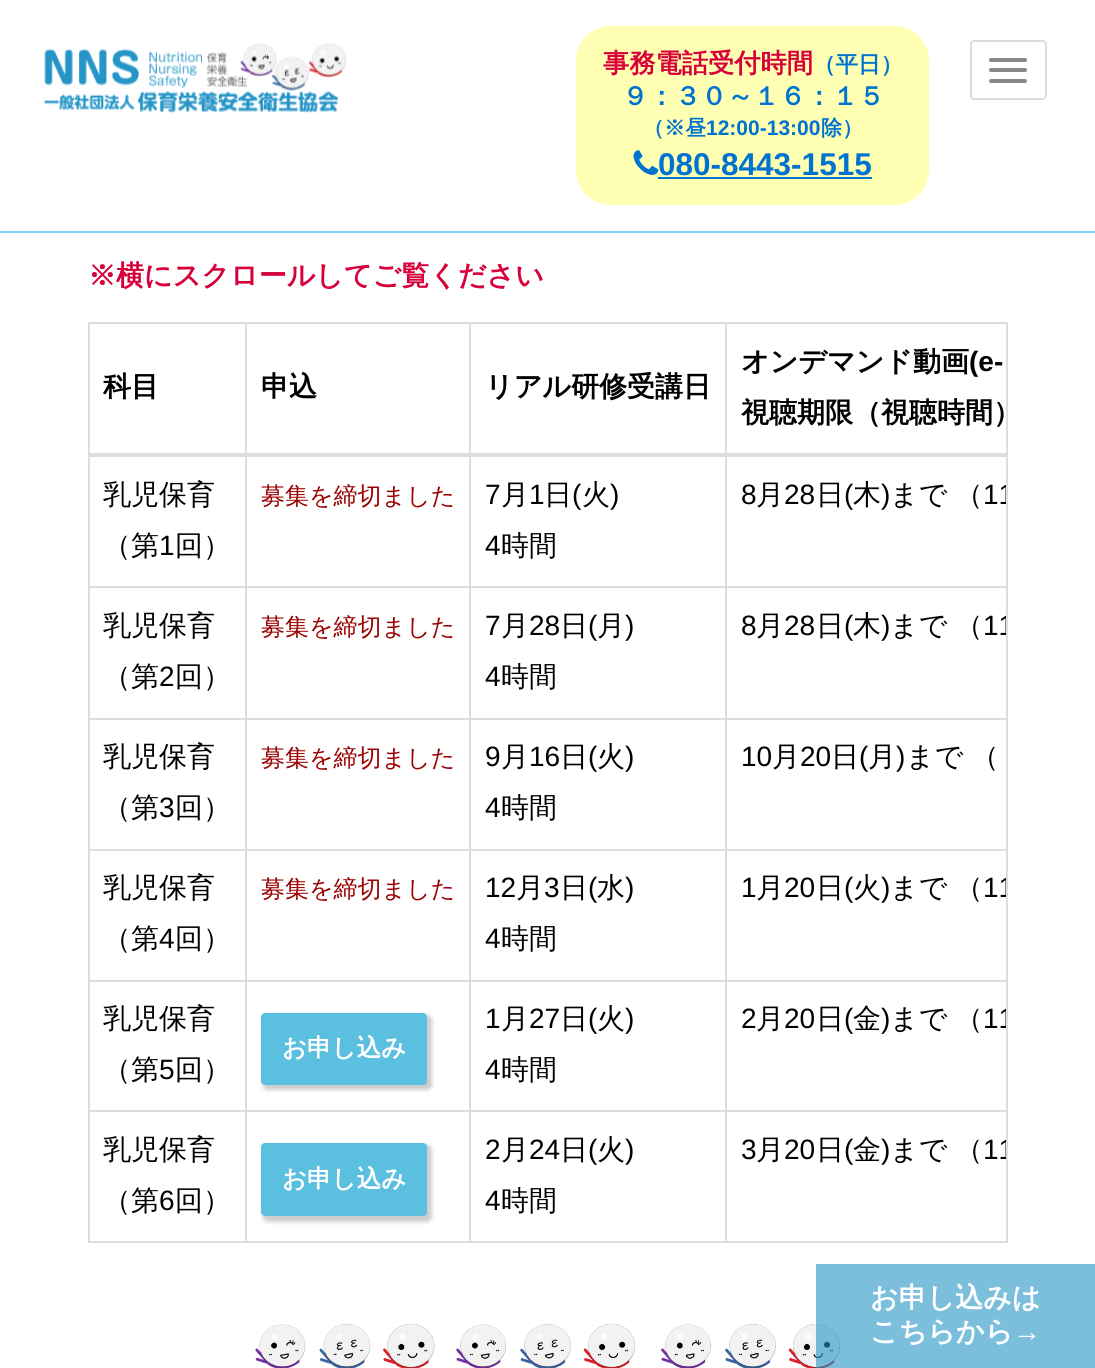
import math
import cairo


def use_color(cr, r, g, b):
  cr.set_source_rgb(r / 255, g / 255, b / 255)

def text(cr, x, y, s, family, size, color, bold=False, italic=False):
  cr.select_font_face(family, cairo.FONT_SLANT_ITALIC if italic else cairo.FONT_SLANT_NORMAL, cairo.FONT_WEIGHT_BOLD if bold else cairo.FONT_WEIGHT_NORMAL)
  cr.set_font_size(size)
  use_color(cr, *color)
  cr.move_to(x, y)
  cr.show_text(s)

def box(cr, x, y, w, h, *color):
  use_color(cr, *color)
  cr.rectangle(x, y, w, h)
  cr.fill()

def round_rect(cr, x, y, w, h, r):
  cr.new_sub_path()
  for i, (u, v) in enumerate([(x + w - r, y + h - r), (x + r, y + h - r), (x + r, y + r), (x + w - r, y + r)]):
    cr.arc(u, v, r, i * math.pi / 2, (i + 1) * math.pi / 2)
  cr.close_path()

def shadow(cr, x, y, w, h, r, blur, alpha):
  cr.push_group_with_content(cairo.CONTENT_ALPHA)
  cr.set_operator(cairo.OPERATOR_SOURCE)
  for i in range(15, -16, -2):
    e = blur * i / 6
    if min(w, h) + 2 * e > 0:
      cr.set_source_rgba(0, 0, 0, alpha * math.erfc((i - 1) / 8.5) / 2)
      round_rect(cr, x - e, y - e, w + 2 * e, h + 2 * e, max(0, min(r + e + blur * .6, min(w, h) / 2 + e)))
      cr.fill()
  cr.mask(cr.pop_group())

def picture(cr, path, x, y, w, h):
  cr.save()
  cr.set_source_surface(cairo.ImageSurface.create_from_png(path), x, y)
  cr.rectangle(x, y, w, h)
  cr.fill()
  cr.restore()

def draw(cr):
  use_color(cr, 255, 255, 255)
  cr.paint()
  box(cr, 0, 231, 1095, 2, 128, 217, 255)
  picture(cr, "img_01.png", 44, 43, 303, 70)
  use_color(cr, 255, 255, 179)
  round_rect(cr, 576, 26, 353, 179, 35)
  cr.fill()
  picture(cr, "img_02.png", 633, 150, 26, 25)
  box(cr, 658, 177, 214, 2, 0, 114, 208)
  round_rect(cr, 971, 41, 75, 58, 3)
  use_color(cr, 221, 221, 221)
  cr.stroke()
  use_color(cr, 136, 136, 136)
  round_rect(cr, 989, 58, 38, 4, 2)
  cr.fill()
  round_rect(cr, 989, 68, 38, 4, 2)
  cr.fill()
  round_rect(cr, 989, 79, 38, 4, 2)
  cr.fill()
  cr.rectangle(89, 323, 918, 919)
  use_color(cr, 221, 221, 221)
  cr.stroke()
  box(cr, 725, 586, 281, 2, 221, 221, 221)
  box(cr, 725, 718, 281, 2, 221, 221, 221)
  box(cr, 725, 849, 281, 2, 221, 221, 221)
  box(cr, 725, 980, 281, 2, 221, 221, 221)
  box(cr, 725, 1110, 281, 2, 221, 221, 221)
  box(cr, 725, 1110, 2, 131, 221, 221, 221)
  box(cr, 469, 1110, 257, 2, 221, 221, 221)
  box(cr, 725, 980, 2, 131, 221, 221, 221)
  box(cr, 469, 980, 257, 2, 221, 221, 221)
  box(cr, 725, 849, 2, 133, 221, 221, 221)
  box(cr, 469, 849, 257, 2, 221, 221, 221)
  box(cr, 725, 718, 2, 133, 221, 221, 221)
  box(cr, 469, 718, 257, 2, 221, 221, 221)
  box(cr, 725, 586, 2, 133, 221, 221, 221)
  box(cr, 469, 586, 257, 2, 221, 221, 221)
  box(cr, 469, 1110, 2, 131, 221, 221, 221)
  box(cr, 245, 1110, 226, 2, 221, 221, 221)
  box(cr, 469, 980, 2, 131, 221, 221, 221)
  box(cr, 245, 980, 226, 2, 221, 221, 221)
  box(cr, 469, 849, 2, 133, 221, 221, 221)
  box(cr, 245, 849, 226, 2, 221, 221, 221)
  box(cr, 469, 718, 2, 133, 221, 221, 221)
  box(cr, 245, 718, 226, 2, 221, 221, 221)
  box(cr, 469, 586, 2, 133, 221, 221, 221)
  box(cr, 245, 586, 226, 2, 221, 221, 221)
  box(cr, 245, 1110, 2, 131, 221, 221, 221)
  box(cr, 89, 1110, 158, 2, 221, 221, 221)
  box(cr, 245, 980, 2, 131, 221, 221, 221)
  box(cr, 89, 980, 158, 2, 221, 221, 221)
  box(cr, 245, 849, 2, 133, 221, 221, 221)
  box(cr, 89, 849, 158, 2, 221, 221, 221)
  box(cr, 245, 718, 2, 133, 221, 221, 221)
  box(cr, 89, 718, 158, 2, 221, 221, 221)
  box(cr, 245, 586, 2, 133, 221, 221, 221)
  box(cr, 89, 586, 158, 2, 221, 221, 221)
  box(cr, 245, 324, 2, 264, 221, 221, 221)
  box(cr, 469, 324, 2, 264, 221, 221, 221)
  box(cr, 725, 324, 2, 264, 221, 221, 221)
  box(cr, 89, 453, 917, 4, 221, 221, 221)
  use_color(cr, 0, 0, 0)
  shadow(cr, 263, 1015, 169, 75, 5, 2, 0.2)
  use_color(cr, 91, 192, 223)
  round_rect(cr, 261, 1013, 166, 72, 4)
  cr.fill()
  use_color(cr, 0, 0, 0)
  shadow(cr, 263, 1145, 169, 77, 5, 2, 0.2)
  use_color(cr, 91, 192, 223)
  round_rect(cr, 261, 1143, 166, 73, 4)
  cr.fill()
  picture(cr, "img_03.png", 255, 1323, 586, 45)
  cr.set_source_rgba(0.145, 0.584, 0.78, 0.6)
  cr.rectangle(816, 1264, 279, 104)
  cr.fill()
  text(cr, 603, 72, "事務電話受付時間", "WenQuanYi Zen Hei", 26.25, (215, 0, 58), bold=True)
  text(cr, 813, 72, "（平日）", "WenQuanYi Zen Hei", 22.5, (0, 114, 208), bold=True)
  text(cr, 622, 105, "９：３０～１６：１５", "WenQuanYi Zen Hei", 26.25, (0, 114, 208), bold=True)
  text(cr, 643, 135, "（※昼", "WenQuanYi Zen Hei", 21, (0, 114, 208), bold=True)
  text(cr, 706, 135, "12:00-13:00", "Liberation Sans", 21, (0, 114, 208), bold=True)
  text(cr, 821, 135, "除）", "WenQuanYi Zen Hei", 21, (0, 114, 208), bold=True)
  text(cr, 658, 175, "080-8443-1515", "Liberation Sans", 31.5, (0, 114, 208), bold=True)
  text(cr, 88, 285, "※横にスクロールしてご覧ください", "WenQuanYi Zen Hei", 28, (215, 0, 58), bold=True)
  text(cr, 103, 396, "科目", "WenQuanYi Zen Hei", 28, (0, 0, 0), bold=True)
  text(cr, 261, 396, "申込", "WenQuanYi Zen Hei", 28, (0, 0, 0), bold=True)
  text(cr, 485, 396, "リアル研修受講日", "WenQuanYi Zen Hei", 28, (0, 0, 0), bold=True)
  text(cr, 741, 371, "オンデマンド動画", "WenQuanYi Zen Hei", 28, (0, 0, 0), bold=True)
  text(cr, 969, 371, "(e-", "Liberation Sans", 28, (0, 0, 0), bold=True)
  text(cr, 741, 422, "視聴期限（視聴時間）", "WenQuanYi Zen Hei", 28, (0, 0, 0), bold=True)
  text(cr, 103, 504, "乳児保育", "WenQuanYi Zen Hei Medium", 28, (0, 0, 0))
  text(cr, 103, 555, "（第", "WenQuanYi Zen Hei Medium", 28, (0, 0, 0))
  text(cr, 159, 555, "1", "Liberation Sans", 28, (0, 0, 0))
  text(cr, 175, 555, "回）", "WenQuanYi Zen Hei Medium", 28, (0, 0, 0))
  text(cr, 261, 504, "募集を締切ました", "WenQuanYi Zen Hei Medium", 24, (153, 0, 0))
  text(cr, 485, 504, "7", "Liberation Sans", 28, (0, 0, 0))
  text(cr, 501, 504, "月", "WenQuanYi Zen Hei Medium", 28, (0, 0, 0))
  text(cr, 529, 504, "1", "Liberation Sans", 28, (0, 0, 0))
  text(cr, 544, 504, "日", "WenQuanYi Zen Hei Medium", 28, (0, 0, 0))
  text(cr, 572, 504, "(", "Liberation Sans", 28, (0, 0, 0))
  text(cr, 582, 504, "火", "WenQuanYi Zen Hei Medium", 28, (0, 0, 0))
  text(cr, 610, 504, ")", "Liberation Sans", 28, (0, 0, 0))
  text(cr, 485, 555, "4", "Liberation Sans", 28, (0, 0, 0))
  text(cr, 501, 555, "時間", "WenQuanYi Zen Hei Medium", 28, (0, 0, 0))
  text(cr, 741, 504, "8", "Liberation Sans", 28, (0, 0, 0))
  text(cr, 756, 504, "月", "WenQuanYi Zen Hei Medium", 28, (0, 0, 0))
  text(cr, 784, 504, "28", "Liberation Sans", 28, (0, 0, 0))
  text(cr, 816, 504, "日", "WenQuanYi Zen Hei Medium", 28, (0, 0, 0))
  text(cr, 844, 504, "(", "Liberation Sans", 28, (0, 0, 0))
  text(cr, 853, 504, "木", "WenQuanYi Zen Hei Medium", 28, (0, 0, 0))
  text(cr, 881, 504, ")", "Liberation Sans", 28, (0, 0, 0))
  text(cr, 890, 504, "まで", "WenQuanYi Zen Hei Medium", 28, (0, 0, 0))
  text(cr, 955, 504, "（", "WenQuanYi Zen Hei Medium", 28, (0, 0, 0))
  cr.save()
  cr.rectangle(89, 324, 917, 917)
  cr.clip()
  text(cr, 983, 504, "11", "Liberation Sans", 28, (0, 0, 0))
  cr.restore()
  text(cr, 103, 635, "乳児保育", "WenQuanYi Zen Hei Medium", 28, (0, 0, 0))
  text(cr, 103, 686, "（第", "WenQuanYi Zen Hei Medium", 28, (0, 0, 0))
  text(cr, 159, 686, "2", "Liberation Sans", 28, (0, 0, 0))
  text(cr, 175, 686, "回）", "WenQuanYi Zen Hei Medium", 28, (0, 0, 0))
  text(cr, 261, 635, "募集を締切ました", "WenQuanYi Zen Hei Medium", 24, (153, 0, 0))
  text(cr, 485, 635, "7", "Liberation Sans", 28, (0, 0, 0))
  text(cr, 501, 635, "月", "WenQuanYi Zen Hei Medium", 28, (0, 0, 0))
  text(cr, 529, 635, "28", "Liberation Sans", 28, (0, 0, 0))
  text(cr, 560, 635, "日", "WenQuanYi Zen Hei Medium", 28, (0, 0, 0))
  text(cr, 588, 635, "(", "Liberation Sans", 28, (0, 0, 0))
  text(cr, 597, 635, "月", "WenQuanYi Zen Hei Medium", 28, (0, 0, 0))
  text(cr, 625, 635, ")", "Liberation Sans", 28, (0, 0, 0))
  text(cr, 485, 686, "4", "Liberation Sans", 28, (0, 0, 0))
  text(cr, 501, 686, "時間", "WenQuanYi Zen Hei Medium", 28, (0, 0, 0))
  text(cr, 741, 635, "8", "Liberation Sans", 28, (0, 0, 0))
  text(cr, 756, 635, "月", "WenQuanYi Zen Hei Medium", 28, (0, 0, 0))
  text(cr, 784, 635, "28", "Liberation Sans", 28, (0, 0, 0))
  text(cr, 816, 635, "日", "WenQuanYi Zen Hei Medium", 28, (0, 0, 0))
  text(cr, 844, 635, "(", "Liberation Sans", 28, (0, 0, 0))
  text(cr, 853, 635, "木", "WenQuanYi Zen Hei Medium", 28, (0, 0, 0))
  text(cr, 881, 635, ")", "Liberation Sans", 28, (0, 0, 0))
  text(cr, 890, 635, "まで", "WenQuanYi Zen Hei Medium", 28, (0, 0, 0))
  text(cr, 955, 635, "（", "WenQuanYi Zen Hei Medium", 28, (0, 0, 0))
  cr.save()
  cr.rectangle(89, 324, 917, 917)
  cr.clip()
  text(cr, 983, 635, "11", "Liberation Sans", 28, (0, 0, 0))
  cr.restore()
  text(cr, 103, 766, "乳児保育", "WenQuanYi Zen Hei Medium", 28, (0, 0, 0))
  text(cr, 103, 817, "（第", "WenQuanYi Zen Hei Medium", 28, (0, 0, 0))
  text(cr, 159, 817, "3", "Liberation Sans", 28, (0, 0, 0))
  text(cr, 175, 817, "回）", "WenQuanYi Zen Hei Medium", 28, (0, 0, 0))
  text(cr, 261, 766, "募集を締切ました", "WenQuanYi Zen Hei Medium", 24, (153, 0, 0))
  text(cr, 485, 766, "9", "Liberation Sans", 28, (0, 0, 0))
  text(cr, 501, 766, "月", "WenQuanYi Zen Hei Medium", 28, (0, 0, 0))
  text(cr, 529, 766, "16", "Liberation Sans", 28, (0, 0, 0))
  text(cr, 560, 766, "日", "WenQuanYi Zen Hei Medium", 28, (0, 0, 0))
  text(cr, 588, 766, "(", "Liberation Sans", 28, (0, 0, 0))
  text(cr, 597, 766, "火", "WenQuanYi Zen Hei Medium", 28, (0, 0, 0))
  text(cr, 625, 766, ")", "Liberation Sans", 28, (0, 0, 0))
  text(cr, 485, 817, "4", "Liberation Sans", 28, (0, 0, 0))
  text(cr, 501, 817, "時間", "WenQuanYi Zen Hei Medium", 28, (0, 0, 0))
  text(cr, 741, 766, "10", "Liberation Sans", 28, (0, 0, 0))
  text(cr, 772, 766, "月", "WenQuanYi Zen Hei Medium", 28, (0, 0, 0))
  text(cr, 800, 766, "20", "Liberation Sans", 28, (0, 0, 0))
  text(cr, 831, 766, "日", "WenQuanYi Zen Hei Medium", 28, (0, 0, 0))
  text(cr, 859, 766, "(", "Liberation Sans", 28, (0, 0, 0))
  text(cr, 868, 766, "月", "WenQuanYi Zen Hei Medium", 28, (0, 0, 0))
  text(cr, 896, 766, ")", "Liberation Sans", 28, (0, 0, 0))
  text(cr, 906, 766, "まで", "WenQuanYi Zen Hei Medium", 28, (0, 0, 0))
  text(cr, 971, 766, "（", "WenQuanYi Zen Hei Medium", 28, (0, 0, 0))
  text(cr, 103, 897, "乳児保育", "WenQuanYi Zen Hei Medium", 28, (0, 0, 0))
  text(cr, 103, 948, "（第", "WenQuanYi Zen Hei Medium", 28, (0, 0, 0))
  text(cr, 159, 948, "4", "Liberation Sans", 28, (0, 0, 0))
  text(cr, 175, 948, "回）", "WenQuanYi Zen Hei Medium", 28, (0, 0, 0))
  text(cr, 261, 897, "募集を締切ました", "WenQuanYi Zen Hei Medium", 24, (153, 0, 0))
  text(cr, 485, 897, "12", "Liberation Sans", 28, (0, 0, 0))
  text(cr, 516, 897, "月", "WenQuanYi Zen Hei Medium", 28, (0, 0, 0))
  text(cr, 544, 897, "3", "Liberation Sans", 28, (0, 0, 0))
  text(cr, 560, 897, "日", "WenQuanYi Zen Hei Medium", 28, (0, 0, 0))
  text(cr, 588, 897, "(", "Liberation Sans", 28, (0, 0, 0))
  text(cr, 597, 897, "水", "WenQuanYi Zen Hei Medium", 28, (0, 0, 0))
  text(cr, 625, 897, ")", "Liberation Sans", 28, (0, 0, 0))
  text(cr, 485, 948, "4", "Liberation Sans", 28, (0, 0, 0))
  text(cr, 501, 948, "時間", "WenQuanYi Zen Hei Medium", 28, (0, 0, 0))
  text(cr, 741, 897, "1", "Liberation Sans", 28, (0, 0, 0))
  text(cr, 756, 897, "月", "WenQuanYi Zen Hei Medium", 28, (0, 0, 0))
  text(cr, 784, 897, "20", "Liberation Sans", 28, (0, 0, 0))
  text(cr, 816, 897, "日", "WenQuanYi Zen Hei Medium", 28, (0, 0, 0))
  text(cr, 844, 897, "(", "Liberation Sans", 28, (0, 0, 0))
  text(cr, 853, 897, "火", "WenQuanYi Zen Hei Medium", 28, (0, 0, 0))
  text(cr, 881, 897, ")", "Liberation Sans", 28, (0, 0, 0))
  text(cr, 890, 897, "まで", "WenQuanYi Zen Hei Medium", 28, (0, 0, 0))
  text(cr, 955, 897, "（", "WenQuanYi Zen Hei Medium", 28, (0, 0, 0))
  cr.save()
  cr.rectangle(89, 324, 917, 917)
  cr.clip()
  text(cr, 983, 897, "11", "Liberation Sans", 28, (0, 0, 0))
  cr.restore()
  text(cr, 103, 1028, "乳児保育", "WenQuanYi Zen Hei Medium", 28, (0, 0, 0))
  text(cr, 103, 1079, "（第", "WenQuanYi Zen Hei Medium", 28, (0, 0, 0))
  text(cr, 159, 1079, "5", "Liberation Sans", 28, (0, 0, 0))
  text(cr, 175, 1079, "回）", "WenQuanYi Zen Hei Medium", 28, (0, 0, 0))
  text(cr, 485, 1028, "1", "Liberation Sans", 28, (0, 0, 0))
  text(cr, 501, 1028, "月", "WenQuanYi Zen Hei Medium", 28, (0, 0, 0))
  text(cr, 529, 1028, "27", "Liberation Sans", 28, (0, 0, 0))
  text(cr, 560, 1028, "日", "WenQuanYi Zen Hei Medium", 28, (0, 0, 0))
  text(cr, 588, 1028, "(", "Liberation Sans", 28, (0, 0, 0))
  text(cr, 597, 1028, "火", "WenQuanYi Zen Hei Medium", 28, (0, 0, 0))
  text(cr, 625, 1028, ")", "Liberation Sans", 28, (0, 0, 0))
  text(cr, 485, 1079, "4", "Liberation Sans", 28, (0, 0, 0))
  text(cr, 501, 1079, "時間", "WenQuanYi Zen Hei Medium", 28, (0, 0, 0))
  text(cr, 741, 1028, "2", "Liberation Sans", 28, (0, 0, 0))
  text(cr, 756, 1028, "月", "WenQuanYi Zen Hei Medium", 28, (0, 0, 0))
  text(cr, 784, 1028, "20", "Liberation Sans", 28, (0, 0, 0))
  text(cr, 816, 1028, "日", "WenQuanYi Zen Hei Medium", 28, (0, 0, 0))
  text(cr, 844, 1028, "(", "Liberation Sans", 28, (0, 0, 0))
  text(cr, 853, 1028, "金", "WenQuanYi Zen Hei Medium", 28, (0, 0, 0))
  text(cr, 881, 1028, ")", "Liberation Sans", 28, (0, 0, 0))
  text(cr, 890, 1028, "まで", "WenQuanYi Zen Hei Medium", 28, (0, 0, 0))
  text(cr, 955, 1028, "（", "WenQuanYi Zen Hei Medium", 28, (0, 0, 0))
  cr.save()
  cr.rectangle(89, 324, 917, 917)
  cr.clip()
  text(cr, 983, 1028, "11", "Liberation Sans", 28, (0, 0, 0))
  cr.restore()
  text(cr, 282, 1056, "お申し込み", "WenQuanYi Zen Hei", 24.5, (255, 255, 255), bold=True)
  text(cr, 103, 1159, "乳児保育", "WenQuanYi Zen Hei Medium", 28, (0, 0, 0))
  text(cr, 103, 1210, "（第", "WenQuanYi Zen Hei Medium", 28, (0, 0, 0))
  text(cr, 159, 1210, "6", "Liberation Sans", 28, (0, 0, 0))
  text(cr, 175, 1210, "回）", "WenQuanYi Zen Hei Medium", 28, (0, 0, 0))
  text(cr, 485, 1159, "2", "Liberation Sans", 28, (0, 0, 0))
  text(cr, 501, 1159, "月", "WenQuanYi Zen Hei Medium", 28, (0, 0, 0))
  text(cr, 529, 1159, "24", "Liberation Sans", 28, (0, 0, 0))
  text(cr, 560, 1159, "日", "WenQuanYi Zen Hei Medium", 28, (0, 0, 0))
  text(cr, 588, 1159, "(", "Liberation Sans", 28, (0, 0, 0))
  text(cr, 597, 1159, "火", "WenQuanYi Zen Hei Medium", 28, (0, 0, 0))
  text(cr, 625, 1159, ")", "Liberation Sans", 28, (0, 0, 0))
  text(cr, 485, 1210, "4", "Liberation Sans", 28, (0, 0, 0))
  text(cr, 501, 1210, "時間", "WenQuanYi Zen Hei Medium", 28, (0, 0, 0))
  text(cr, 741, 1159, "3", "Liberation Sans", 28, (0, 0, 0))
  text(cr, 756, 1159, "月", "WenQuanYi Zen Hei Medium", 28, (0, 0, 0))
  text(cr, 784, 1159, "20", "Liberation Sans", 28, (0, 0, 0))
  text(cr, 816, 1159, "日", "WenQuanYi Zen Hei Medium", 28, (0, 0, 0))
  text(cr, 844, 1159, "(", "Liberation Sans", 28, (0, 0, 0))
  text(cr, 853, 1159, "金", "WenQuanYi Zen Hei Medium", 28, (0, 0, 0))
  text(cr, 881, 1159, ")", "Liberation Sans", 28, (0, 0, 0))
  text(cr, 890, 1159, "まで", "WenQuanYi Zen Hei Medium", 28, (0, 0, 0))
  text(cr, 955, 1159, "（", "WenQuanYi Zen Hei Medium", 28, (0, 0, 0))
  cr.save()
  cr.rectangle(89, 324, 917, 917)
  cr.clip()
  text(cr, 983, 1159, "11", "Liberation Sans", 28, (0, 0, 0))
  cr.restore()
  text(cr, 282, 1187, "お申し込み", "WenQuanYi Zen Hei", 24.5, (255, 255, 255), bold=True)
  text(cr, 870, 1307, "お申し込みは", "WenQuanYi Zen Hei", 28, (255, 255, 255), bold=True)
  text(cr, 870, 1341, "こちらから", "WenQuanYi Zen Hei", 28, (255, 255, 255), bold=True)
  text(cr, 1013, 1341, "→", "Liberation Sans", 28, (255, 255, 255), bold=True)


surface = cairo.ImageSurface(cairo.FORMAT_RGB24, 1095, 1368)
cr = cairo.Context(surface)
options = cairo.FontOptions()
options.set_hint_metrics(cairo.HINT_METRICS_OFF)
options.set_hint_style(cairo.HINT_STYLE_NONE)
cr.set_font_options(options)
cr.set_miter_limit(4)
draw(cr)
surface.write_to_png("out.png")
